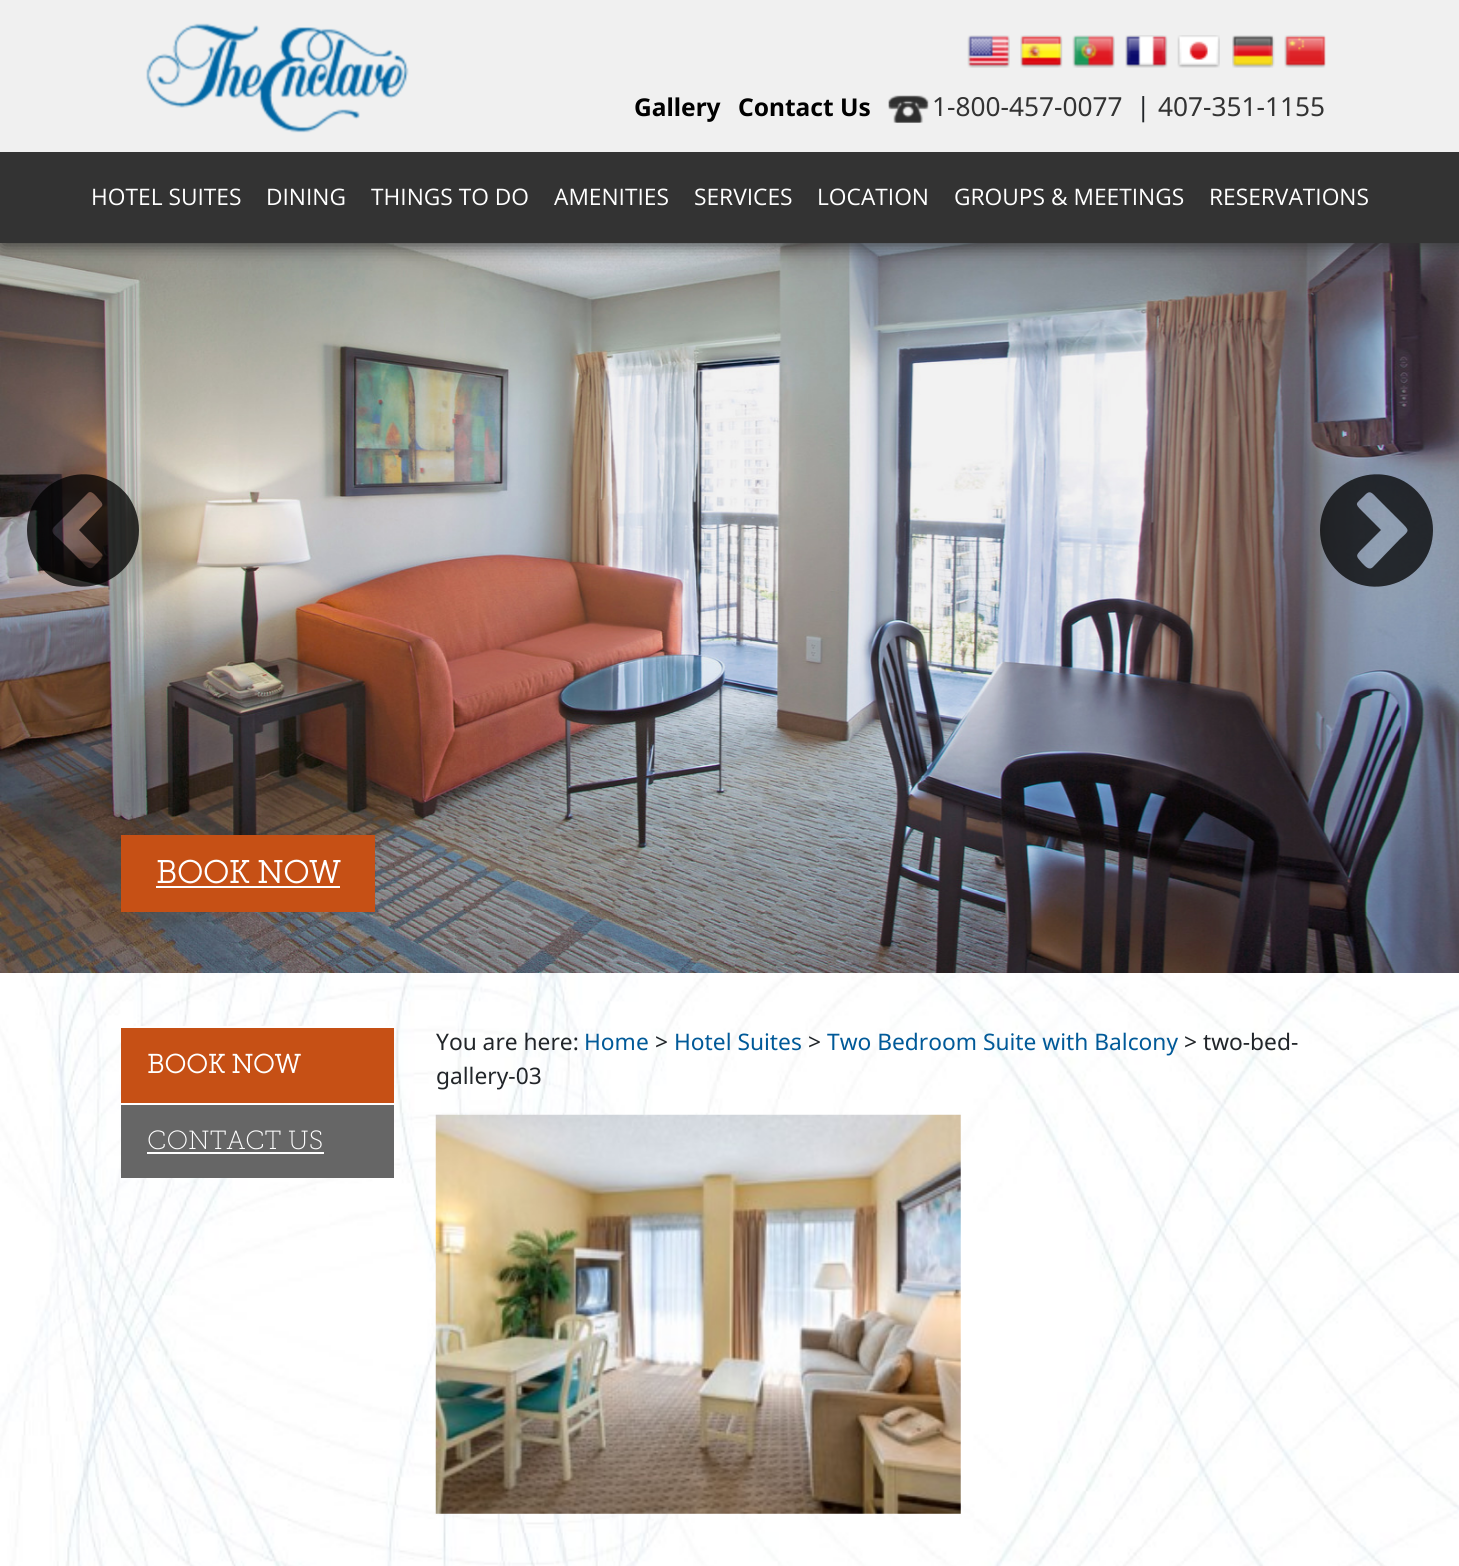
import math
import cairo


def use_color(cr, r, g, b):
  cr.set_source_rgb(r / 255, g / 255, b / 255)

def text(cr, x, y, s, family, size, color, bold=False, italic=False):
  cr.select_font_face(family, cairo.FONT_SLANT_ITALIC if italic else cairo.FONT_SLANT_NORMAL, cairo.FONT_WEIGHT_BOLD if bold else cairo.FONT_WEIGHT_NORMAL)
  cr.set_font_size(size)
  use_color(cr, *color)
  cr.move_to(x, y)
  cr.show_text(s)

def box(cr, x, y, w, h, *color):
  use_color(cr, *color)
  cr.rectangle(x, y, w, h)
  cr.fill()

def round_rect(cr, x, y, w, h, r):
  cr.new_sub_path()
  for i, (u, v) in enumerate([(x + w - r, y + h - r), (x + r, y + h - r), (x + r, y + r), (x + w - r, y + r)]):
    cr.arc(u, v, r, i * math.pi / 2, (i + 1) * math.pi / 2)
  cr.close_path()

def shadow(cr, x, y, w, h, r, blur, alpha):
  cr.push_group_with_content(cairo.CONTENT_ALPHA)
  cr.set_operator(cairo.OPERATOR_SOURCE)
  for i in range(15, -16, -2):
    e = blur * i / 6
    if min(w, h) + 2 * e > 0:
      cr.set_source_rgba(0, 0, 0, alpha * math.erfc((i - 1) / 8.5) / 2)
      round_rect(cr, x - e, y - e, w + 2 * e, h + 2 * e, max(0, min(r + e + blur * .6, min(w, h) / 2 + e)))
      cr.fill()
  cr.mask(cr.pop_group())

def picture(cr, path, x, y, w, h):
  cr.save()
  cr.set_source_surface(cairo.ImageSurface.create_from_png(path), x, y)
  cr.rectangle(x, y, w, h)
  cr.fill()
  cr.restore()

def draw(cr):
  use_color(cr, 255, 255, 255)
  cr.paint()
  picture(cr, "img_11.png", 0, 243, 1459, 730)
  use_color(cr, 51, 51, 51)
  shadow(cr, 2, 2, 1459, 243, 0, 9, 1)
  box(cr, 0, 0, 1459, 152, 240, 240, 240)
  picture(cr, "img_01.png", 146, 23, 263, 110)
  picture(cr, "img_02.png", 967, 35, 43, 33)
  picture(cr, "img_03.png", 1020, 35, 43, 33)
  picture(cr, "img_04.png", 1072, 35, 43, 33)
  picture(cr, "img_05.png", 1125, 35, 43, 33)
  picture(cr, "img_06.png", 1177, 35, 43, 33)
  picture(cr, "img_07.png", 1232, 35, 41, 33)
  picture(cr, "img_08.png", 1272, 35, 54, 33)
  picture(cr, "img_09.png", 888, 95, 41, 28)
  picture(cr, "img_10.png", 888, 95, 41, 28)
  box(cr, 0, 152, 1459, 91, 51, 51, 51)
  cr.set_source_rgba(0, 0, 0, 0.75)
  cr.new_path()
  cr.move_to(93, 567)
  cr.curve_to(89, 571, 84, 564, 81, 561)
  cr.line_to(59, 539)
  cr.curve_to(56, 536, 49, 532, 54, 527)
  cr.line_to(88, 493)
  cr.curve_to(91, 490, 95, 495, 97, 497)
  cr.curve_to(99, 500, 105, 504, 101, 507)
  cr.line_to(79, 530)
  cr.line_to(102, 554)
  cr.curve_to(104, 557, 100, 560, 98, 562)
  cr.close_path()
  cr.move_to(139, 530)
  cr.curve_to(139, 518, 135, 506, 128, 496)
  cr.curve_to(95, 454, 27, 477, 27, 530)
  cr.curve_to(27, 543, 31, 555, 39, 565)
  cr.curve_to(71, 607, 139, 584, 139, 530)
  cr.close_path()
  cr.fill()
  cr.new_path()
  cr.move_to(1373, 567)
  cr.curve_to(1369, 571, 1365, 566, 1362, 563)
  cr.curve_to(1356, 556, 1355, 556, 1362, 549)
  cr.line_to(1381, 530)
  cr.line_to(1362, 511)
  cr.curve_to(1354, 503, 1356, 504, 1364, 496)
  cr.curve_to(1370, 489, 1372, 493, 1378, 499)
  cr.line_to(1400, 521)
  cr.curve_to(1410, 531, 1410, 530, 1400, 539)
  cr.close_path()
  cr.move_to(1433, 530)
  cr.curve_to(1433, 518, 1429, 506, 1421, 496)
  cr.curve_to(1388, 454, 1320, 477, 1320, 530)
  cr.curve_to(1320, 543, 1324, 555, 1332, 565)
  cr.curve_to(1364, 607, 1433, 584, 1433, 530)
  cr.close_path()
  cr.fill()
  box(cr, 121, 835, 254, 77, 198, 80, 21)
  box(cr, 156, 886, 184, 2, 255, 255, 255)
  picture(cr, "img_12.png", 0, 973, 1459, 593)
  box(cr, 121, 1028, 273, 75, 198, 80, 21)
  box(cr, 134, 1026, 260, 2, 255, 255, 255)
  box(cr, 121, 1105, 273, 73, 102, 102, 102)
  box(cr, 121, 1103, 159, 2, 255, 255, 255)
  box(cr, 147, 1152, 177, 2, 255, 255, 255)
  picture(cr, "img_13.png", 435, 1114, 526, 400)
  text(cr, 634, 116, "Gallery", "Noto Sans", 24.5, (0, 0, 0), bold=True)
  text(cr, 738, 116, "Contact Us", "Noto Sans", 24.5, (0, 0, 0), bold=True)
  text(cr, 932, 116, "1-800-457-0077", "Noto Sans", 26.25, (51, 51, 51))
  text(cr, 1136, 116, "|", "Noto Sans", 26.25, (33, 37, 41))
  text(cr, 1158, 116, "407-351-1155", "Noto Sans", 26.25, (51, 51, 51))
  text(cr, 91, 205, "HOTEL SUITES", "Open Sans", 22.75, (255, 255, 255))
  text(cr, 266, 205, "DINING", "Open Sans", 22.75, (255, 255, 255))
  text(cr, 371, 205, "THINGS TO DO", "Open Sans", 22.75, (255, 255, 255))
  text(cr, 554, 205, "AMENITIES", "Open Sans", 22.75, (255, 255, 255))
  text(cr, 694, 205, "SERVICES", "Open Sans", 22.75, (255, 255, 255))
  text(cr, 817, 205, "LOCATION", "Open Sans", 22.75, (255, 255, 255))
  text(cr, 954, 205, "GROUPS & MEETINGS", "Open Sans", 22.75, (255, 255, 255))
  text(cr, 1209, 205, "RESERVATIONS", "Open Sans", 22.75, (255, 255, 255))
  text(cr, 156, 883, "BOOK NOW", "Museo Slab", 31.5, (255, 255, 255), bold=True)
  text(cr, 147, 1073, "BOOK NOW", "Museo Slab", 26.25, (255, 255, 255), bold=True)
  text(cr, 147, 1149, "CONTACT US", "Museo Slab ExtraLight", 26.25, (255, 255, 255))
  text(cr, 436, 1050, "You are here:", "Noto Sans", 22.75, (33, 37, 41))
  text(cr, 584, 1050, "Home", "Noto Sans", 22.75, (0, 89, 152))
  text(cr, 655, 1050, ">", "Noto Sans", 22.75, (33, 37, 41))
  text(cr, 674, 1050, "Hotel Suites", "Noto Sans", 22.75, (0, 89, 152))
  text(cr, 808, 1050, ">", "Noto Sans", 22.75, (33, 37, 41))
  text(cr, 827, 1050, "Two Bedroom Suite with Balcony", "Noto Sans", 22.75, (0, 89, 152))
  text(cr, 1184, 1050, "> two-bed-", "Noto Sans", 22.75, (33, 37, 41))
  text(cr, 436, 1084, "gallery-03", "Noto Sans", 22.75, (33, 37, 41))


surface = cairo.ImageSurface(cairo.FORMAT_RGB24, 1459, 1566)
cr = cairo.Context(surface)
options = cairo.FontOptions()
options.set_hint_metrics(cairo.HINT_METRICS_OFF)
options.set_hint_style(cairo.HINT_STYLE_NONE)
cr.set_font_options(options)
cr.set_miter_limit(4)
draw(cr)
surface.write_to_png("out.png")
